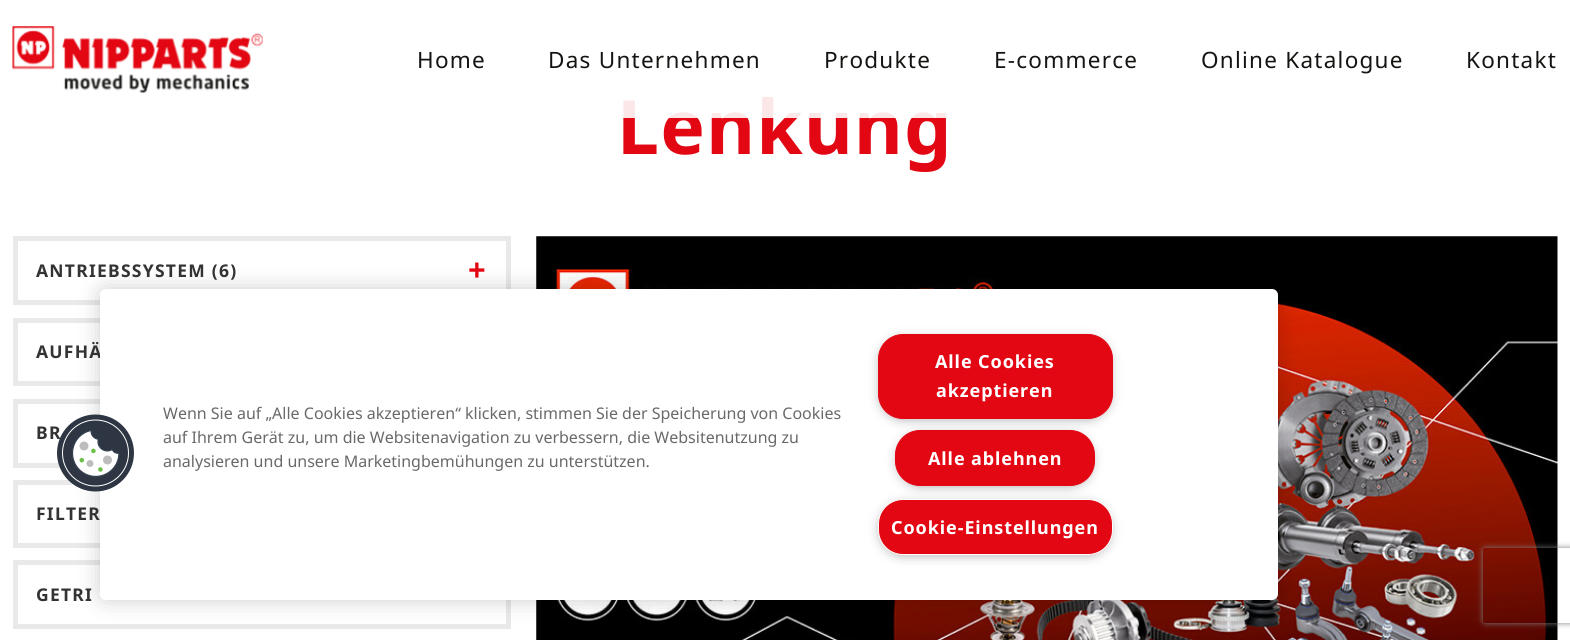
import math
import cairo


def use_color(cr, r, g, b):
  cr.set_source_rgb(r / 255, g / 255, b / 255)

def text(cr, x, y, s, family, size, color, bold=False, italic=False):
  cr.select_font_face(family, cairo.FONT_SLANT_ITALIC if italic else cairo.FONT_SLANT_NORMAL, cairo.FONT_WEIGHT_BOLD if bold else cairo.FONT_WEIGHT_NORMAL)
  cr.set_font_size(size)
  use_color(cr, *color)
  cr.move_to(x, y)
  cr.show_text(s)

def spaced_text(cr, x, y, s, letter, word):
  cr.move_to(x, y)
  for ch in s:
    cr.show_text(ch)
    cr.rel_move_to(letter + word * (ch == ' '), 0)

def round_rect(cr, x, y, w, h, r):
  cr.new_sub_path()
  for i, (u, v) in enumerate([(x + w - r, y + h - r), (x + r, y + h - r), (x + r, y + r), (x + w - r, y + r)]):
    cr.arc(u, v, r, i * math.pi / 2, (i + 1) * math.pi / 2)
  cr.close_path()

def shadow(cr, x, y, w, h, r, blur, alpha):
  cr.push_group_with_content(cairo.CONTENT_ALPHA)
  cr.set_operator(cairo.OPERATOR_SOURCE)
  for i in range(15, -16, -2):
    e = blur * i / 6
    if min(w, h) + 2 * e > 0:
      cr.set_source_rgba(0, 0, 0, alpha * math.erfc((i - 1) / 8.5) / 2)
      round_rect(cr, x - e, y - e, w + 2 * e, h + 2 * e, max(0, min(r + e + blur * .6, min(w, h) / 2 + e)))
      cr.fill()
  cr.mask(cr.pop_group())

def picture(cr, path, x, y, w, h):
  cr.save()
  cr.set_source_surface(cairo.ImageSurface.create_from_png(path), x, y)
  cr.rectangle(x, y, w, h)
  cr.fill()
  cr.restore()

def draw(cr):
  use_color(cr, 255, 255, 255)
  cr.paint()
  picture(cr, "img_01.png", 12, 26, 251, 67)
  cr.rectangle(15.5, 238.5, 493, 64)
  use_color(cr, 233, 233, 233)
  cr.set_line_width(5)
  cr.stroke()
  cr.rectangle(15.5, 320.5, 493, 63)
  cr.stroke()
  cr.rectangle(15.5, 401.5, 493, 64)
  cr.stroke()
  cr.rectangle(15.5, 482.5, 493, 63)
  cr.stroke()
  cr.rectangle(15.5, 562.5, 493, 64)
  cr.stroke()
  picture(cr, "img_02.png", 536, 236, 1022, 404)
  use_color(cr, 0, 0, 0)
  shadow(cr, 100, 289, 1178, 311, 6, 11, 0.2)
  cr.save()
  cr.set_fill_rule(cairo.FILL_RULE_EVEN_ODD)
  cr.new_path()
  cr.move_to(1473, 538)
  cr.line_to(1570, 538)
  cr.line_to(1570, 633)
  cr.line_to(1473, 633)
  cr.close_path()
  cr.move_to(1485.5, 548)
  cr.line_to(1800.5, 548)
  cr.curve_to(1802, 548, 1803, 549, 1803, 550.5)
  cr.line_to(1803, 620.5)
  cr.curve_to(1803, 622, 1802, 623, 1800.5, 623)
  cr.line_to(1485.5, 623)
  cr.curve_to(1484, 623, 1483, 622, 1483, 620.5)
  cr.line_to(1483, 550.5)
  cr.curve_to(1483, 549, 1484, 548, 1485.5, 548)
  cr.close_path()
  cr.clip()
  use_color(cr, 128, 128, 128)
  shadow(cr, 1483, 548, 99, 75, 2.5, 3, 1)
  cr.restore()
  cr.select_font_face("Noto Sans")
  cr.set_font_size(22.5)
  use_color(cr, 20, 20, 18)
  spaced_text(cr, 417, 68, "Home", 1.25, 0)
  spaced_text(cr, 548, 68, "Das Unternehmen", 1.25, 0)
  spaced_text(cr, 824, 68, "Produkte", 1.25, 0)
  spaced_text(cr, 994, 68, "E-commerce", 1.25, 0)
  spaced_text(cr, 1201, 68, "Online Katalogue", 1.25, 0)
  spaced_text(cr, 1466, 68, "Kontakt", 1.25, 0)
  cr.select_font_face("Noto Sans", cairo.FONT_SLANT_NORMAL, cairo.FONT_WEIGHT_BOLD)
  cr.set_font_size(75)
  use_color(cr, 227, 6, 19)
  spaced_text(cr, 617, 154, "Lenkung", 1.25, 0)
  cr.set_source_rgba(1, 1, 1, 0.9)
  cr.rectangle(623, 97, 324, 21)
  cr.fill()
  cr.set_font_size(17.5)
  use_color(cr, 51, 51, 51)
  spaced_text(cr, 36, 277, "ANTRIEBSSYSTEM (6)", 1.25, 0)
  cr.set_font_size(31)
  use_color(cr, 227, 6, 19)
  spaced_text(cr, 468, 281, "+", 1.25, 0)
  cr.set_font_size(17.5)
  use_color(cr, 51, 51, 51)
  spaced_text(cr, 36, 358, "AUFHÄ", 1.25, 0)
  spaced_text(cr, 36, 439, "BR", 1.25, 0)
  spaced_text(cr, 36, 520, "FILTER", 1.25, 0)
  spaced_text(cr, 36, 601, "GETRI", 1.25, 0)
  use_color(cr, 255, 255, 255)
  round_rect(cr, 100, 289, 1178, 311, 6)
  cr.fill()
  picture(cr, "img_03.png", 57, 414, 77, 78)
  text(cr, 163, 419, "Wenn Sie auf „Alle Cookies akzeptieren“ klicken, stimmen Sie der Speicherung von Cookies", "Noto Sans", 16, (105, 105, 105))
  text(cr, 163, 443, "auf Ihrem Gerät zu, um die Websitenavigation zu verbessern, die Websitenutzung zu", "Noto Sans", 16, (105, 105, 105))
  text(cr, 163, 467, "analysieren und unsere Marketingbemühungen zu unterstützen.", "Noto Sans", 16, (105, 105, 105))
  use_color(cr, 153, 153, 153)
  shadow(cr, 881, 340, 228, 78, 21, 6, 1)
  use_color(cr, 227, 6, 19)
  round_rect(cr, 878.5, 334.5, 234, 84, 24.5)
  cr.fill_preserve()
  cr.set_line_width(1)
  cr.stroke()
  cr.select_font_face("Noto Sans", cairo.FONT_SLANT_NORMAL, cairo.FONT_WEIGHT_BOLD)
  cr.set_font_size(18)
  use_color(cr, 255, 255, 255)
  spaced_text(cr, 935, 368, "Alle Cookies", 0.9, 0)
  spaced_text(cr, 936, 397, "akzeptieren", 0.9, 0)
  use_color(cr, 153, 153, 153)
  shadow(cr, 899, 436, 192, 49, 21, 6, 1)
  use_color(cr, 227, 6, 19)
  round_rect(cr, 895.5, 430.5, 199, 55, 24.5)
  cr.fill_preserve()
  cr.stroke()
  use_color(cr, 255, 255, 255)
  spaced_text(cr, 928, 465, "Alle ablehnen", 0.9, 0)
  use_color(cr, 153, 153, 153)
  shadow(cr, 881, 505, 228, 49, 21, 6, 1)
  use_color(cr, 227, 6, 19)
  round_rect(cr, 878.5, 499.5, 234, 55, 24.5)
  cr.fill_preserve()
  use_color(cr, 255, 255, 255)
  cr.stroke()
  spaced_text(cr, 891, 534, "Cookie-Einstellungen", 0.9, 0)


surface = cairo.ImageSurface(cairo.FORMAT_RGB24, 1570, 640)
cr = cairo.Context(surface)
options = cairo.FontOptions()
options.set_hint_metrics(cairo.HINT_METRICS_OFF)
options.set_hint_style(cairo.HINT_STYLE_NONE)
cr.set_font_options(options)
cr.set_miter_limit(4)
draw(cr)
surface.write_to_png("out.png")
